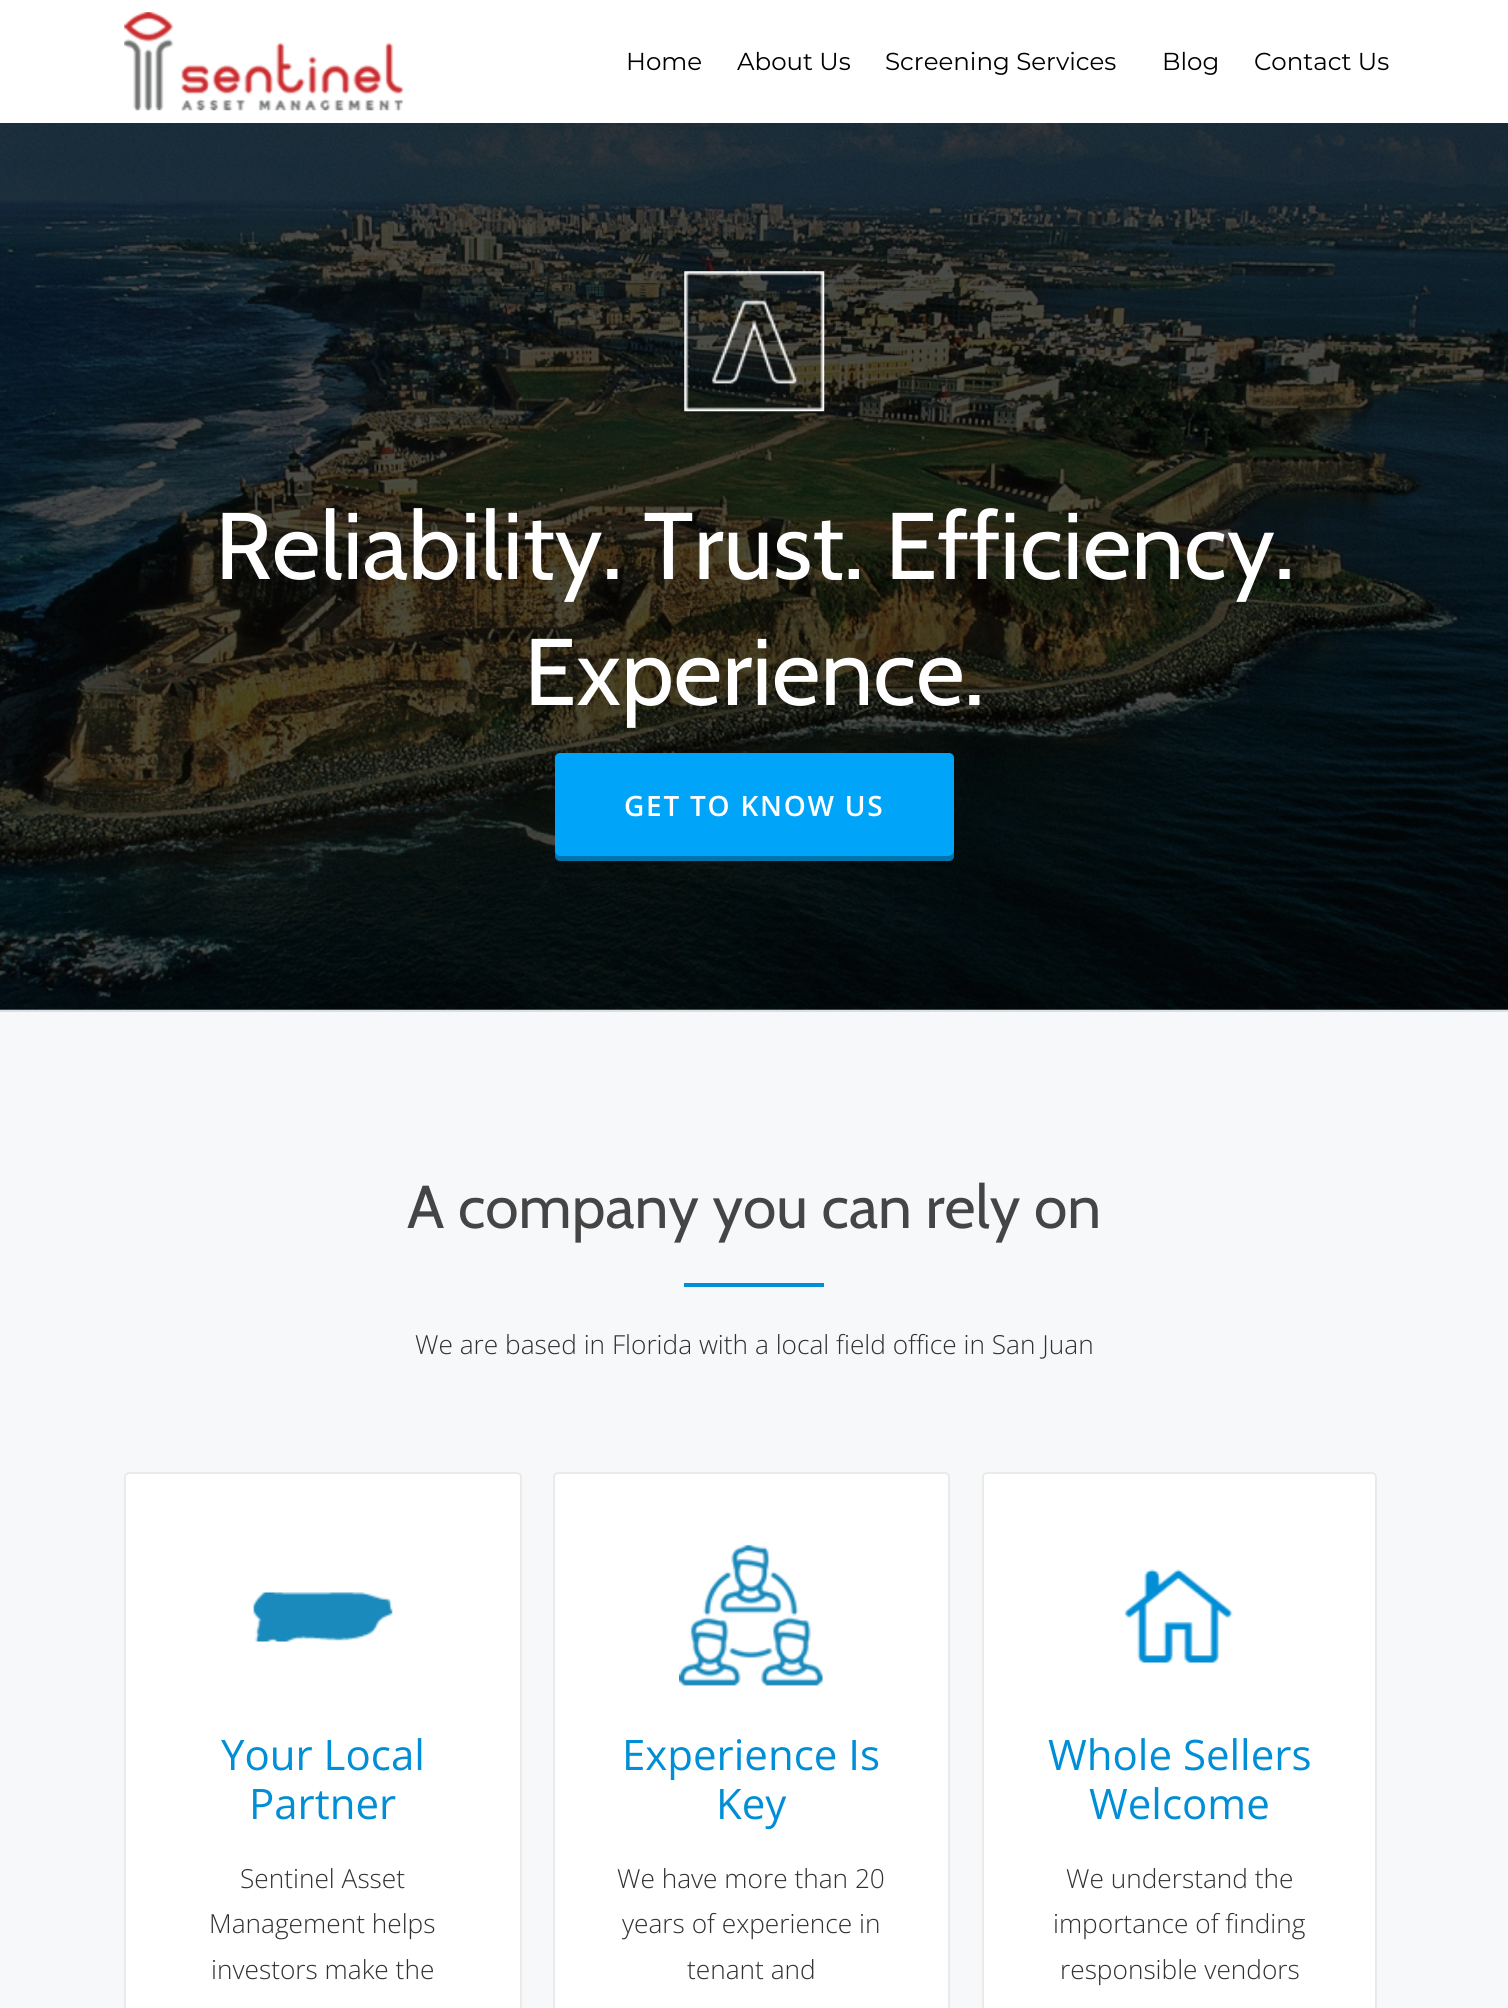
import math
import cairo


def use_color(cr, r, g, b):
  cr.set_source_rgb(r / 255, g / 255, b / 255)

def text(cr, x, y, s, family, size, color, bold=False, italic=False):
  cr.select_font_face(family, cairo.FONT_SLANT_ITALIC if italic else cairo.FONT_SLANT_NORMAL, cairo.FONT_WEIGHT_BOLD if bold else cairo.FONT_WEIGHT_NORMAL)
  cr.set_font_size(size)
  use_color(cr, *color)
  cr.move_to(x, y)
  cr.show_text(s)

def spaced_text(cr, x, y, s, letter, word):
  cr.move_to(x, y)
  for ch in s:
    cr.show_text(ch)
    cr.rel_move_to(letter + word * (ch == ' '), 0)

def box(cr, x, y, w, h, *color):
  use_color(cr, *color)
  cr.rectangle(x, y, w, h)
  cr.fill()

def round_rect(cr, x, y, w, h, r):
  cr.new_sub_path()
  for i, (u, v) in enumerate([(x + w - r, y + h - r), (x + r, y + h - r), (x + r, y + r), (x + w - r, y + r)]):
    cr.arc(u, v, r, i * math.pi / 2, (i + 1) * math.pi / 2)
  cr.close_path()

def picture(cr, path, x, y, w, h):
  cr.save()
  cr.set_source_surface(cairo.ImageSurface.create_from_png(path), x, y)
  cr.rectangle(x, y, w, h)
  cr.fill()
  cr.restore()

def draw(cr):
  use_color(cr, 255, 255, 255)
  cr.paint()
  picture(cr, "img_01.png", 0, 123, 1508, 887)
  picture(cr, "img_02.png", 124, 12, 280, 99)
  picture(cr, "img_03.png", 684, 271, 141, 141)
  use_color(cr, 0, 165, 249)
  round_rect(cr, 555, 753, 399, 108, 5)
  cr.fill()
  cr.set_source_rgba(0, 0, 0, 0.3)
  cr.new_path()
  cr.move_to(555, 850)
  cr.line_to(555, 856)
  cr.curve_to(555, 859, 557, 861, 560, 861)
  cr.line_to(949, 861)
  cr.curve_to(952, 861, 954, 859, 954, 856)
  cr.line_to(954, 850)
  cr.curve_to(954, 853, 951, 856, 948, 856)
  cr.line_to(560, 856)
  cr.curve_to(557, 856, 555, 853, 555, 850)
  cr.close_path()
  cr.fill()
  box(cr, 0, 1010, 1508, 2, 218, 223, 227)
  box(cr, 0, 1012, 1508, 996, 247, 248, 250)
  box(cr, 684, 1283, 140, 4, 0, 142, 214)
  use_color(cr, 255, 255, 255)
  cr.new_path()
  cr.move_to(130, 1474)
  cr.line_to(516, 1474)
  cr.curve_to(518, 1474, 520, 1475, 520, 1477)
  cr.line_to(520, 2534)
  cr.line_to(126, 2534)
  cr.line_to(126, 1477)
  cr.curve_to(126, 1475, 128, 1474, 130, 1474)
  cr.close_path()
  cr.fill()
  round_rect(cr, 125, 1473, 396, 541, 4)
  use_color(cr, 234, 234, 234)
  cr.stroke()
  picture(cr, "img_04.png", 253, 1592, 140, 50)
  use_color(cr, 255, 255, 255)
  cr.new_path()
  cr.move_to(558, 1474)
  cr.line_to(945, 1474)
  cr.curve_to(947, 1474, 948, 1475, 948, 1477)
  cr.line_to(948, 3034)
  cr.line_to(555, 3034)
  cr.line_to(555, 1477)
  cr.curve_to(555, 1475, 556, 1474, 558, 1474)
  cr.close_path()
  cr.fill()
  round_rect(cr, 554, 1473, 395, 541, 4)
  use_color(cr, 234, 234, 234)
  cr.stroke()
  picture(cr, "img_05.png", 679, 1544, 144, 142)
  use_color(cr, 255, 255, 255)
  cr.new_path()
  cr.move_to(987, 1474)
  cr.line_to(1372, 1474)
  cr.curve_to(1374, 1474, 1376, 1475, 1376, 1477)
  cr.line_to(1376, 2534)
  cr.line_to(984, 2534)
  cr.line_to(984, 1477)
  cr.curve_to(984, 1475, 985, 1474, 987, 1474)
  cr.close_path()
  cr.fill()
  round_rect(cr, 983, 1473, 393, 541, 4)
  use_color(cr, 234, 234, 234)
  cr.stroke()
  picture(cr, "img_06.png", 1124, 1569, 109, 94)
  text(cr, 626, 70, "Home", "Montserrat", 24.5, (0, 0, 0))
  text(cr, 737, 70, "About Us", "Montserrat", 24.5, (0, 0, 0))
  text(cr, 885, 70, "Screening Services", "Montserrat", 24.5, (0, 0, 0))
  text(cr, 1162, 70, "Blog", "Montserrat", 24.5, (0, 0, 0))
  text(cr, 1254, 70, "Contact Us", "Montserrat", 24.5, (0, 0, 0))
  text(cr, 215, 579, "Reliability. Trust. Efficiency.", "Cabin", 94.5, (255, 255, 255))
  text(cr, 524, 705, "Experience.", "Cabin", 94.5, (255, 255, 255))
  cr.select_font_face("Open Sans SemiBold")
  cr.set_font_size(28)
  spaced_text(cr, 624, 816, "GET TO KNOW US", 1.75, 0)
  text(cr, 407, 1228, "A company you can rely on", "Cabin", 60.5, (69, 69, 69))
  text(cr, 415, 1354, "We are based in Florida with a local field office in San Juan", "Open Sans Light", 26.25, (49, 49, 49))
  text(cr, 221, 1770, "Your Local", "Open Sans", 42, (0, 142, 214))
  text(cr, 249, 1819, "Partner", "Open Sans", 42, (0, 142, 214))
  text(cr, 240, 1888, "Sentinel Asset", "Open Sans Light", 26.25, (49, 49, 49))
  text(cr, 209, 1933, "Management helps", "Open Sans Light", 26.25, (49, 49, 49))
  text(cr, 211, 1979, "investors make the", "Open Sans Light", 26.25, (49, 49, 49))
  text(cr, 622, 1770, "Experience Is", "Open Sans", 42, (0, 142, 214))
  text(cr, 716, 1819, "Key", "Open Sans", 42, (0, 142, 214))
  text(cr, 617, 1888, "We have more than 20", "Open Sans Light", 26.25, (49, 49, 49))
  text(cr, 622, 1933, "years of experience in", "Open Sans Light", 26.25, (49, 49, 49))
  text(cr, 687, 1979, "tenant and", "Open Sans Light", 26.25, (49, 49, 49))
  text(cr, 1048, 1770, "Whole Sellers", "Open Sans", 42, (0, 142, 214))
  text(cr, 1089, 1819, "Welcome", "Open Sans", 42, (0, 142, 214))
  text(cr, 1066, 1888, "We understand the", "Open Sans Light", 26.25, (49, 49, 49))
  text(cr, 1053, 1933, "importance of finding", "Open Sans Light", 26.25, (49, 49, 49))
  text(cr, 1060, 1979, "responsible vendors", "Open Sans Light", 26.25, (49, 49, 49))


surface = cairo.ImageSurface(cairo.FORMAT_RGB24, 1508, 2008)
cr = cairo.Context(surface)
options = cairo.FontOptions()
options.set_hint_metrics(cairo.HINT_METRICS_OFF)
options.set_hint_style(cairo.HINT_STYLE_NONE)
cr.set_font_options(options)
cr.set_miter_limit(4)
draw(cr)
surface.write_to_png("out.png")
